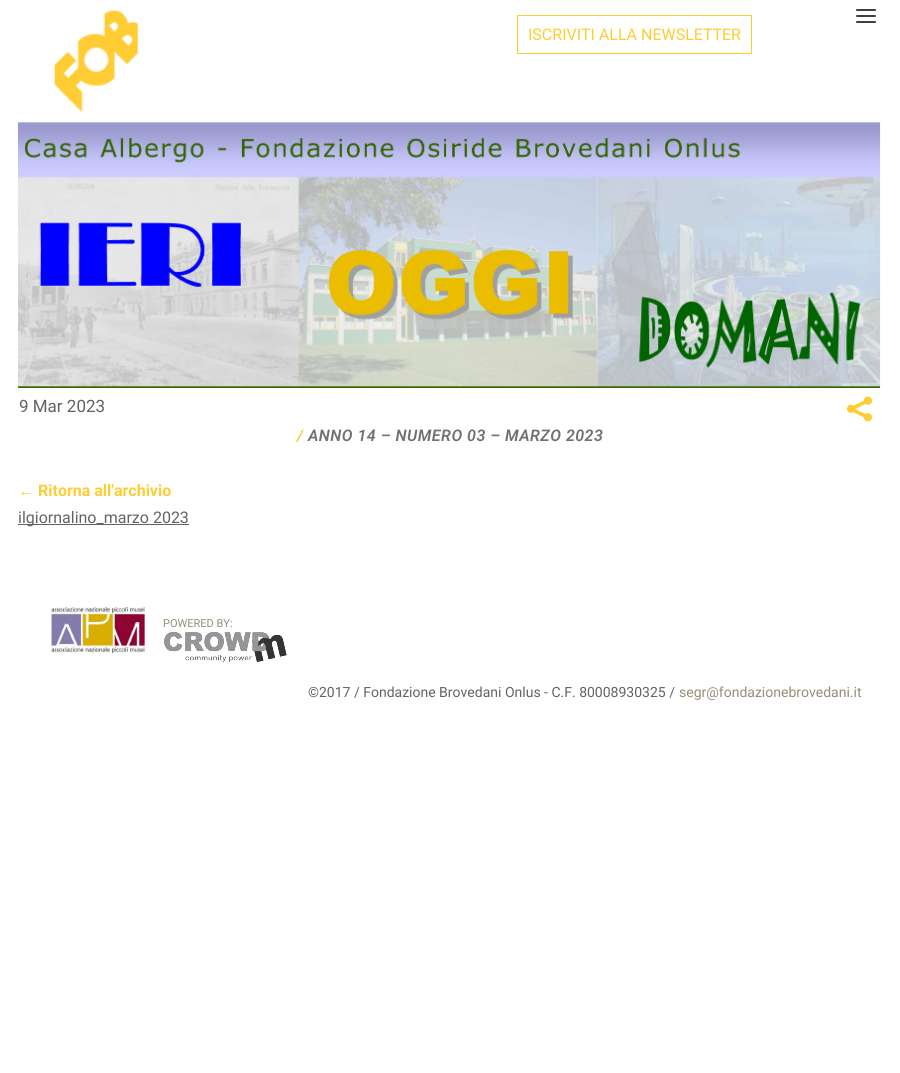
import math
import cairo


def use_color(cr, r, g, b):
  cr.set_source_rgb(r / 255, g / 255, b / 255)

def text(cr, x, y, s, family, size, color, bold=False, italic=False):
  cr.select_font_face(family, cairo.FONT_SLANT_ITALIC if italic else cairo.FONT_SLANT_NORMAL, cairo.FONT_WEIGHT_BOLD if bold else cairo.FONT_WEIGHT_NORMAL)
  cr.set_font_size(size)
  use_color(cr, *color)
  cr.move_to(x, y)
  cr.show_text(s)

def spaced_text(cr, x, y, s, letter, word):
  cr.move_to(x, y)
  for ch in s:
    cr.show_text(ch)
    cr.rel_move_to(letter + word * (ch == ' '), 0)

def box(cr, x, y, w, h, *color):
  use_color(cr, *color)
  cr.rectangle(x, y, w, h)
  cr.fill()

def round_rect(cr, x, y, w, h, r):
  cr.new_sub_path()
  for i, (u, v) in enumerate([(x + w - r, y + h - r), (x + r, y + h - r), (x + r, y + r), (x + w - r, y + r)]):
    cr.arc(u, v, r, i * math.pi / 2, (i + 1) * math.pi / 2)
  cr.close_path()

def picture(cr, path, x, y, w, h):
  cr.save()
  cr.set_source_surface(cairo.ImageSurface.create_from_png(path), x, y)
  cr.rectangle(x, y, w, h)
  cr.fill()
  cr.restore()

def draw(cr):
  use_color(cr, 255, 255, 255)
  cr.paint()
  picture(cr, "img_01.png", 54, 10, 84, 102)
  cr.rectangle(517.5, 15.5, 234, 38)
  use_color(cr, 255, 204, 50)
  cr.set_line_width(1)
  cr.stroke()
  use_color(cr, 64, 64, 64)
  round_rect(cr, 856, 9, 20, 2, 1)
  cr.fill()
  round_rect(cr, 856, 15, 20, 2, 1)
  cr.fill()
  round_rect(cr, 856, 21, 20, 2, 1)
  cr.fill()
  picture(cr, "img_02.png", 18, 122, 864, 266)
  picture(cr, "img_03.png", 847, 396, 25, 26)
  box(cr, 18, 524, 171, 1, 99, 99, 99)
  picture(cr, "img_04.png", 51, 607, 94, 46)
  picture(cr, "img_05.png", 164, 632, 123, 30)
  text(cr, 528, 40, "ISCRIVITI ALLA NEWSLETTER", "Roboto", 16, (255, 204, 51))
  text(cr, 19, 412, "9 Mar 2023", "Roboto", 17, (99, 99, 99))
  cr.select_font_face("Roboto SemiBold", cairo.FONT_SLANT_ITALIC)
  cr.set_font_size(16)
  use_color(cr, 255, 204, 51)
  spaced_text(cr, 297, 441, "/", 0.5, 0)
  use_color(cr, 113, 113, 113)
  spaced_text(cr, 308, 441, "ANNO 14 – NUMERO 03 – MARZO 2023", 0.5, 0)
  text(cr, 18, 496, "←", "Liberation Sans", 16, (255, 204, 51), bold=True)
  text(cr, 38, 496, "Ritorna all'archivio", "Roboto", 16, (255, 204, 51), bold=True)
  text(cr, 18, 523, "ilgiornalino_marzo 2023", "Roboto", 16, (99, 99, 99))
  text(cr, 163, 627, "POWERED BY:", "Roboto", 11, (149, 141, 118))
  text(cr, 308, 697, "©2017 / Fondazione Brovedani Onlus - C.F. 80008930325 /", "Roboto", 14, (99, 99, 99))
  text(cr, 679, 697, "segr@fondazionebrovedani.it", "Roboto", 14, (149, 141, 118))


surface = cairo.ImageSurface(cairo.FORMAT_RGB24, 900, 1073)
cr = cairo.Context(surface)
options = cairo.FontOptions()
options.set_hint_metrics(cairo.HINT_METRICS_OFF)
options.set_hint_style(cairo.HINT_STYLE_NONE)
cr.set_font_options(options)
cr.set_miter_limit(4)
draw(cr)
surface.write_to_png("out.png")
